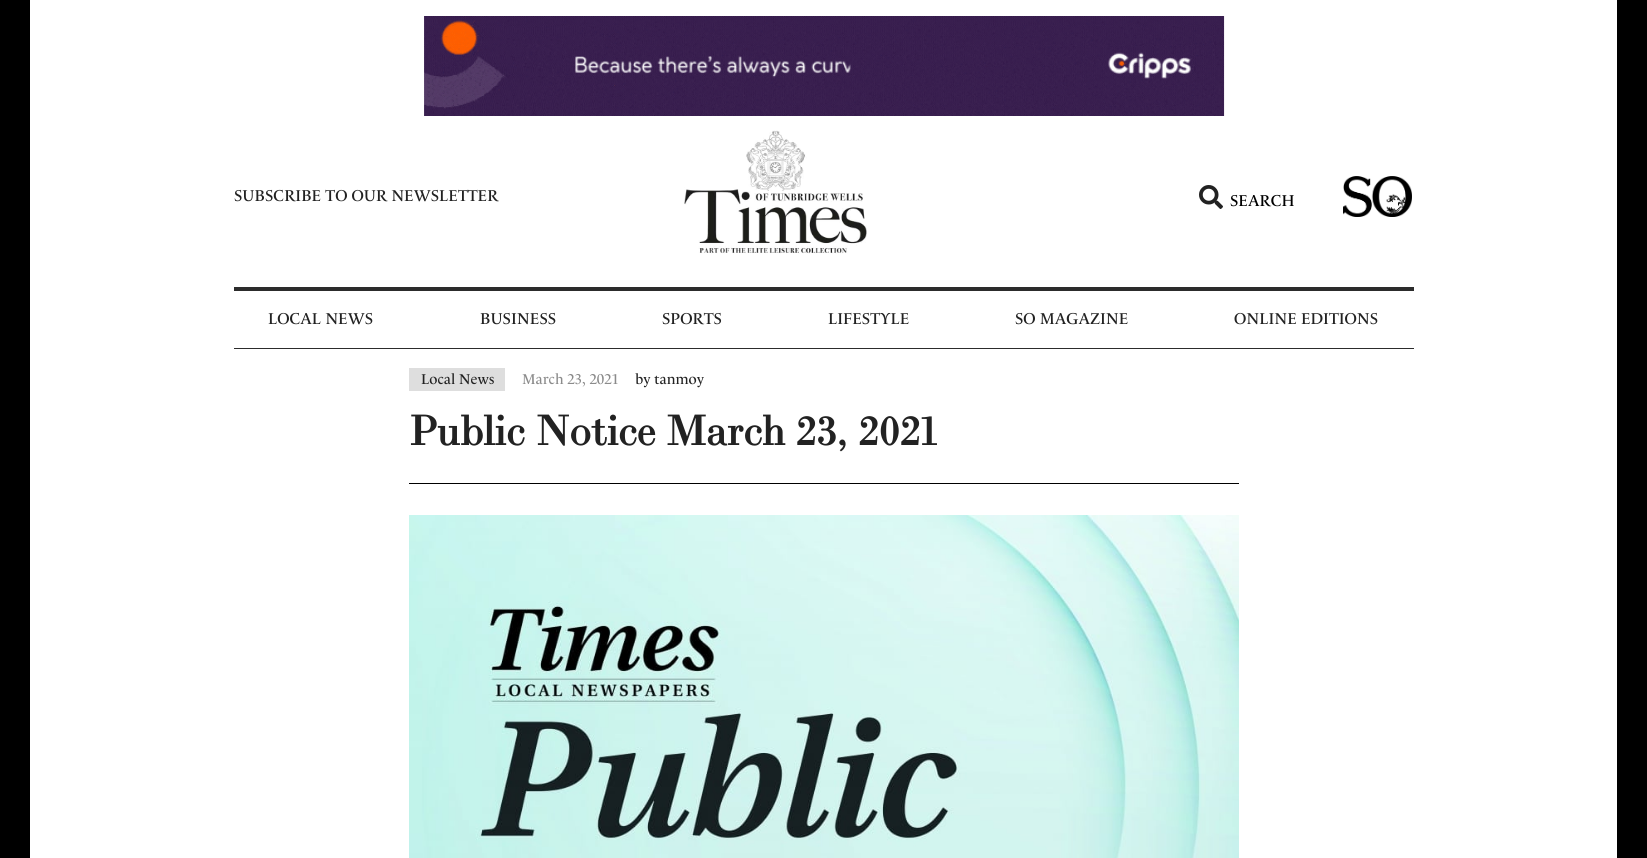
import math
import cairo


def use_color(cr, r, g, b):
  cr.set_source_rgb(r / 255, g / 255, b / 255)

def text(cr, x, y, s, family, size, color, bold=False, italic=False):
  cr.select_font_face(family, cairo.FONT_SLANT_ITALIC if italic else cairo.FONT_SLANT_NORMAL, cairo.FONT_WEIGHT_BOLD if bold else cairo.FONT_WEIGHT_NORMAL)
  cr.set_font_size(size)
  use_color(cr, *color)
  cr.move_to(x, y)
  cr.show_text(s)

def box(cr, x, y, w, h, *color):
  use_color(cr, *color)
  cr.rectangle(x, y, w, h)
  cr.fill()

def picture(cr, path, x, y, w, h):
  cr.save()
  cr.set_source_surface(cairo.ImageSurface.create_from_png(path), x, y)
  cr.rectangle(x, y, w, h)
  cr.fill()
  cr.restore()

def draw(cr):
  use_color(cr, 255, 255, 255)
  cr.paint()
  box(cr, 1617, 0, 30, 858, 0, 0, 0)
  box(cr, 0, 0, 30, 858, 0, 0, 0)
  picture(cr, "img_01.png", 424, 16, 801, 100)
  picture(cr, "img_02.png", 684, 130, 183, 124)
  picture(cr, "img_03.png", 1199, 185, 24, 24)
  picture(cr, "img_04.png", 1343, 176, 69, 41)
  box(cr, 234, 287, 1180, 4, 44, 44, 44)
  box(cr, 234, 348, 1180, 1, 44, 44, 44)
  box(cr, 409, 368, 96, 23, 222, 222, 222)
  box(cr, 409, 483, 830, 1, 0, 0, 0)
  picture(cr, "img_05.png", 409, 515, 830, 343)
  text(cr, 234, 201, "SUBSCRIBE TO OUR NEWSLETTER", "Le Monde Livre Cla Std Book", 16, (34, 34, 34))
  text(cr, 1230, 206, "SEARCH", "Le Monde Livre Cla Std Book", 16, (0, 0, 0))
  text(cr, 268, 324, "LOCAL NEWS", "Le Monde Livre Cla Std Book", 16, (34, 34, 34))
  text(cr, 480, 324, "BUSINESS", "Le Monde Livre Cla Std Book", 16, (34, 34, 34))
  text(cr, 662, 324, "SPORTS", "Le Monde Livre Cla Std Book", 16, (34, 34, 34))
  text(cr, 828, 324, "LIFESTYLE", "Le Monde Livre Cla Std Book", 16, (34, 34, 34))
  text(cr, 1015, 324, "SO MAGAZINE", "Le Monde Livre Cla Std Book", 16, (34, 34, 34))
  text(cr, 1234, 324, "ONLINE EDITIONS", "Le Monde Livre Cla Std Book", 16, (34, 34, 34))
  text(cr, 421, 384, "Local News", "Le Monde Livre Cla Std Book", 14.5, (34, 34, 34))
  text(cr, 522, 384, "March 23, 2021", "Le Monde Livre Cla Std Book", 14.5, (139, 139, 139))
  text(cr, 635, 384, "by tanmoy", "Le Monde Livre Cla Std Book", 14.5, (34, 34, 34))
  text(cr, 409, 445, "Public Notice March 23, 2021", "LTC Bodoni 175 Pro", 41.6, (34, 34, 34), bold=True)


surface = cairo.ImageSurface(cairo.FORMAT_RGB24, 1647, 858)
cr = cairo.Context(surface)
options = cairo.FontOptions()
options.set_hint_metrics(cairo.HINT_METRICS_OFF)
options.set_hint_style(cairo.HINT_STYLE_NONE)
cr.set_font_options(options)
cr.set_miter_limit(4)
draw(cr)
surface.write_to_png("out.png")
